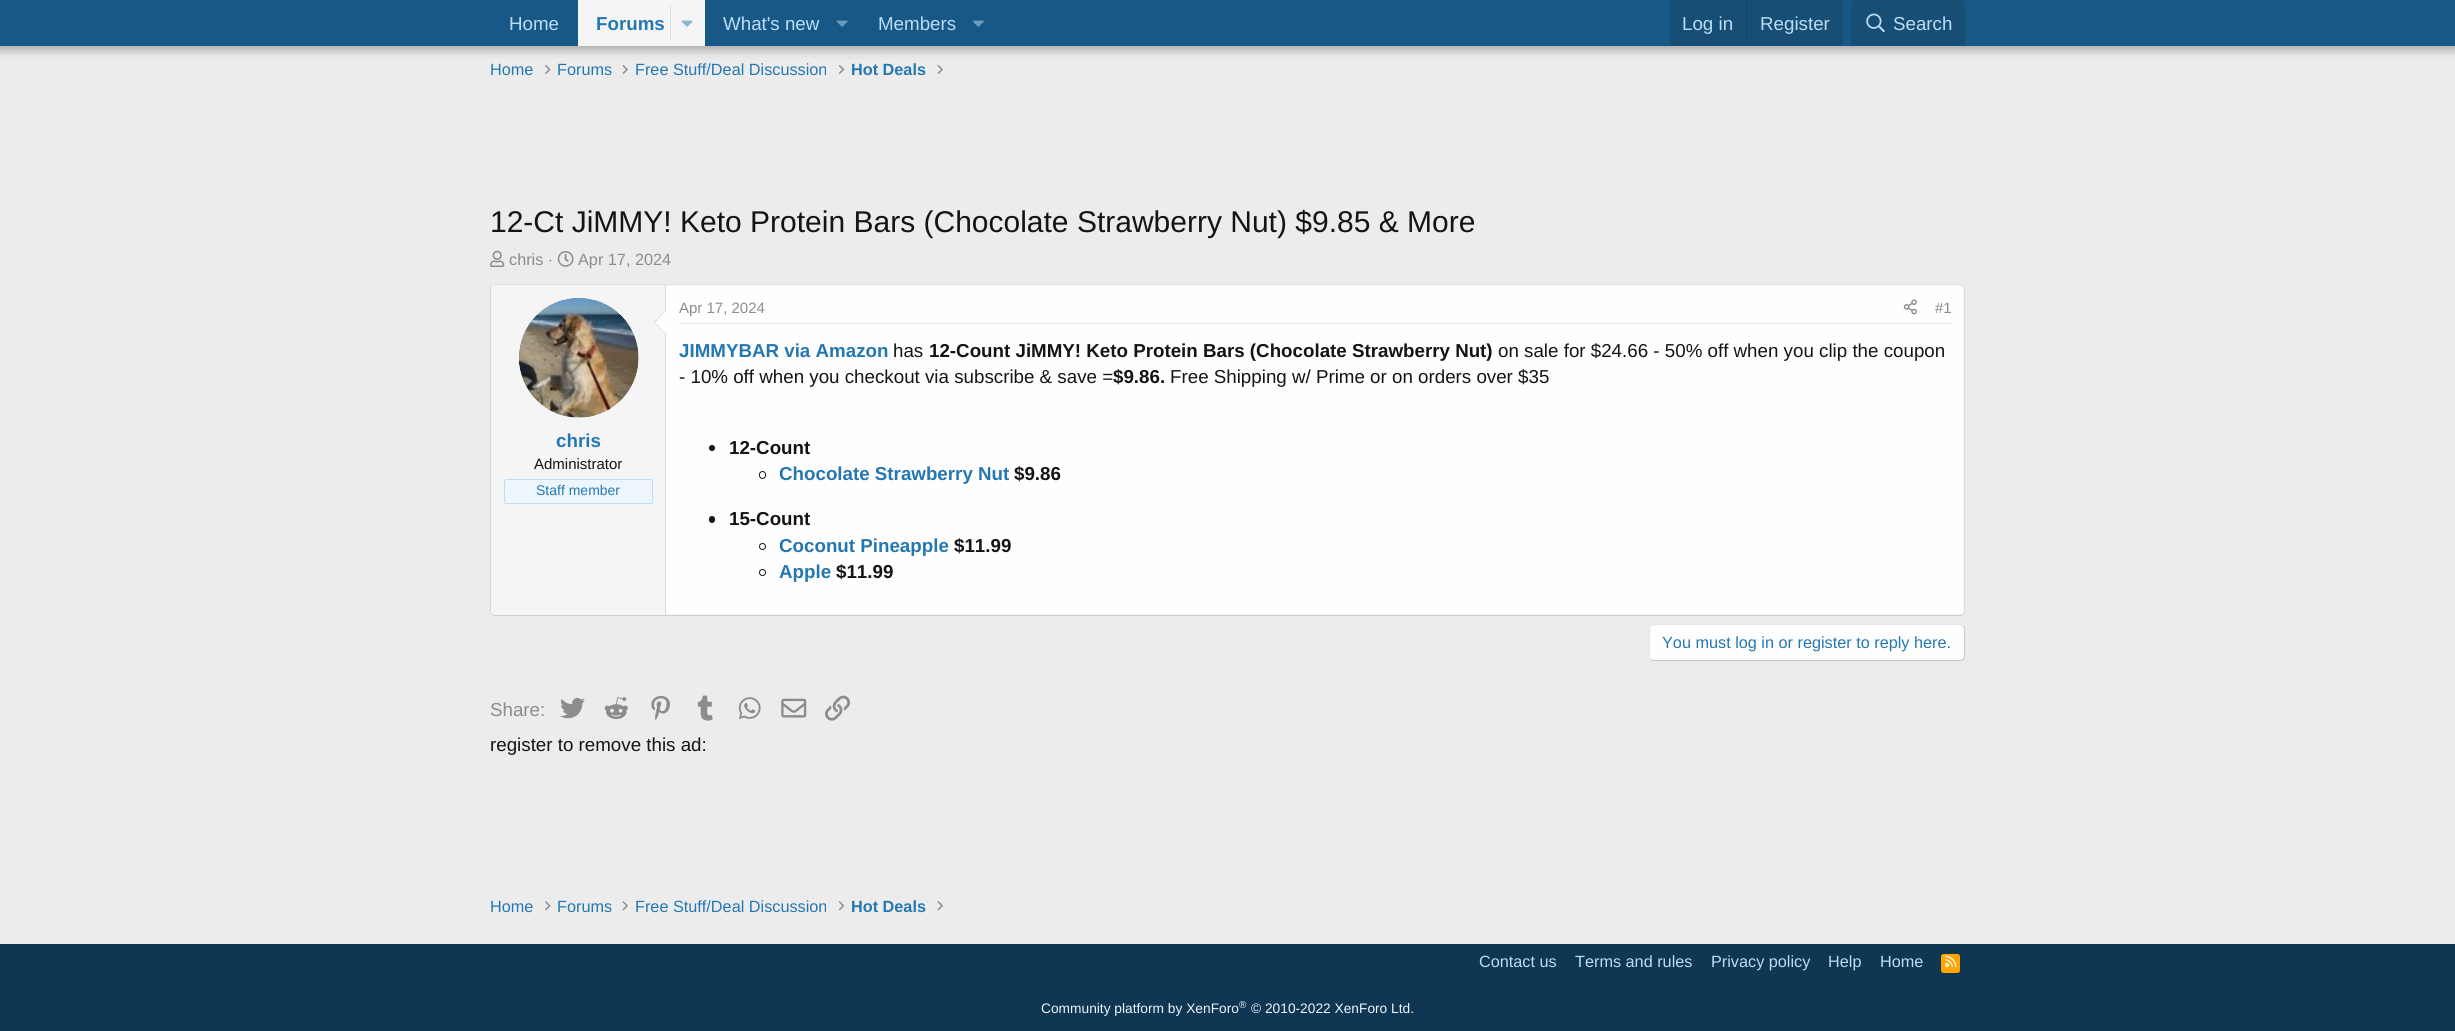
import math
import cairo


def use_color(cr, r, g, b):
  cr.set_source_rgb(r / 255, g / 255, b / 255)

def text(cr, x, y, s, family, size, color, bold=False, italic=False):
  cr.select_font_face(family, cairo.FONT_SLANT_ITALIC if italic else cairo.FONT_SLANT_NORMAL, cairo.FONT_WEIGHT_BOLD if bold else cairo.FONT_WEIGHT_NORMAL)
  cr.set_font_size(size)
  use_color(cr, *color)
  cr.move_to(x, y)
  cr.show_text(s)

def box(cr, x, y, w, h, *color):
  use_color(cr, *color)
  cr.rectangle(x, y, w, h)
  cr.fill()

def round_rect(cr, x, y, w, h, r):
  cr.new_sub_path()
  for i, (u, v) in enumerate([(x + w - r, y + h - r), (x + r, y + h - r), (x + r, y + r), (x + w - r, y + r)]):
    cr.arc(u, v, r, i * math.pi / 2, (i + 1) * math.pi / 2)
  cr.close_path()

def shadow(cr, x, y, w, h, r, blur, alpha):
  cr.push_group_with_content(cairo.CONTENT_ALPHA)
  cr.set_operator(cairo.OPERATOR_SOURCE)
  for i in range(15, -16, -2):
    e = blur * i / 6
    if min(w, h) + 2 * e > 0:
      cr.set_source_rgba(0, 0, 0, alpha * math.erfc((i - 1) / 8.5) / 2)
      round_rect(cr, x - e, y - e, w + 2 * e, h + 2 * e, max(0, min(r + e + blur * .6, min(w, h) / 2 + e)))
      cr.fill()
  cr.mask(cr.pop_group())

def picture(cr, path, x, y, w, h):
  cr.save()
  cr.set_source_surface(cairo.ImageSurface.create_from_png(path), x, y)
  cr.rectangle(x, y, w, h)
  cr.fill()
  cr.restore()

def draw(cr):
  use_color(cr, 236, 236, 236)
  cr.paint()
  picture(cr, "img_05.png", 545, 65, 6, 9)
  picture(cr, "img_06.png", 622, 65, 6, 9)
  picture(cr, "img_07.png", 838, 65, 7, 9)
  picture(cr, "img_06.png", 937, 65, 6, 9)
  use_color(cr, 0, 0, 0)
  shadow(cr, -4, -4, 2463, 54, 0, 5, 0.3)
  box(cr, 0, 0, 2455, 46, 24, 88, 134)
  box(cr, 578, 0, 127, 46, 245, 245, 245)
  box(cr, 670, 6, 1, 34, 209, 223, 233)
  picture(cr, "img_01.png", 681, 20, 12, 7)
  picture(cr, "img_02.png", 836, 20, 12, 7)
  picture(cr, "img_03.png", 973, 20, 11, 7)
  box(cr, 1670, 0, 173, 46, 23, 78, 117)
  box(cr, 1746, 0, 1, 46, 23, 69, 102)
  use_color(cr, 23, 78, 117)
  cr.new_path()
  cr.move_to(1856, 0)
  cr.line_to(1960, 0)
  cr.curve_to(1963, 0, 1965, 2, 1965, 5)
  cr.line_to(1965, 46)
  cr.line_to(1851, 46)
  cr.line_to(1851, 5)
  cr.curve_to(1851, 2, 1853, 0, 1856, 0)
  cr.close_path()
  cr.fill()
  picture(cr, "img_04.png", 1866, 13, 19, 20)
  picture(cr, "img_08.png", 490, 250, 15, 17)
  picture(cr, "img_09.png", 557, 251, 17, 16)
  use_color(cr, 254, 254, 254)
  round_rect(cr, 490, 284, 1475, 332, 5)
  cr.fill()
  cr.new_path()
  cr.move_to(492, 285.5)
  cr.line_to(495, 284.5)
  cr.line_to(1960, 284.5)
  cr.line_to(1963, 285.5)
  use_color(cr, 223, 223, 223)
  cr.set_line_width(1.2)
  cr.stroke()
  cr.new_path()
  cr.move_to(1963, 285.5)
  cr.curve_to(1964, 286.5, 1964.5, 287.5, 1964.5, 289)
  cr.line_to(1964.5, 611)
  cr.curve_to(1964.5, 612.5, 1964, 613.5, 1963, 614.5)
  use_color(cr, 216, 216, 216)
  cr.stroke()
  cr.new_path()
  cr.move_to(1963, 614.5)
  cr.line_to(1960, 615.5)
  cr.line_to(495, 615.5)
  cr.line_to(492, 614.5)
  use_color(cr, 203, 203, 203)
  cr.stroke()
  cr.new_path()
  cr.move_to(492, 614.5)
  cr.curve_to(491, 613.5, 490.5, 612.5, 490.5, 611)
  cr.line_to(490.5, 289)
  cr.curve_to(490.5, 287.5, 491, 286.5, 492, 285.5)
  use_color(cr, 216, 216, 216)
  cr.stroke()
  use_color(cr, 245, 245, 245)
  cr.new_path()
  cr.move_to(495, 285)
  cr.line_to(666, 285)
  cr.line_to(666, 615)
  cr.line_to(495, 615)
  cr.curve_to(493, 615, 491, 613, 491, 611)
  cr.line_to(491, 289)
  cr.curve_to(491, 287, 493, 285, 495, 285)
  cr.close_path()
  cr.fill()
  box(cr, 665, 285, 1, 330, 216, 216, 216)
  use_color(cr, 254, 254, 254)
  cr.arc(579, 358, 60, 0, 2 * math.pi)
  cr.fill()
  picture(cr, "img_10.png", 519, 298, 120, 120)
  use_color(cr, 216, 216, 216)
  cr.new_path()
  cr.move_to(666, 310)
  cr.line_to(666, 335)
  cr.line_to(654, 322.5)
  cr.close_path()
  cr.fill()
  use_color(cr, 254, 254, 254)
  cr.new_path()
  cr.move_to(666, 311)
  cr.line_to(666, 334)
  cr.line_to(655, 322.5)
  cr.close_path()
  cr.fill()
  use_color(cr, 237, 246, 253)
  round_rect(cr, 504.5, 479.5, 148, 24, 2)
  cr.fill_preserve()
  use_color(cr, 188, 222, 245)
  cr.set_line_width(1)
  cr.stroke()
  box(cr, 679, 323, 1272, 1, 231, 231, 231)
  picture(cr, "img_11.png", 1903, 299, 14, 16)
  use_color(cr, 20, 20, 20)
  cr.arc(712, 448, 3, 0, 2 * math.pi)
  cr.fill()
  round_rect(cr, 759.5, 471.5, 6, 7, 3)
  cr.stroke()
  round_rect(cr, 709, 516, 6, 7, 3)
  cr.fill()
  cr.arc(762.5, 546.5, 3, 0, 2 * math.pi)
  cr.stroke()
  cr.arc(762.5, 572.5, 3, 0, 2 * math.pi)
  cr.stroke()
  use_color(cr, 254, 254, 254)
  round_rect(cr, 1649, 624, 316, 37, 5)
  cr.fill()
  cr.new_path()
  cr.move_to(1963, 625.5)
  cr.curve_to(1964, 626.5, 1964.5, 627.5, 1964.5, 629)
  cr.line_to(1964.5, 656)
  cr.curve_to(1964.5, 657.5, 1964, 658.5, 1963, 659.5)
  cr.curve_to(1962.5, 660, 1961, 660.5, 1960, 660.5)
  cr.line_to(1654, 660.5)
  cr.curve_to(1652.5, 660.5, 1651.5, 660, 1650.5, 659.5)
  use_color(cr, 203, 203, 203)
  cr.set_line_width(1.2)
  cr.stroke()
  cr.new_path()
  cr.move_to(1650.5, 659.5)
  cr.curve_to(1650, 658.5, 1649.5, 657.5, 1649.5, 656)
  cr.line_to(1649.5, 629)
  cr.curve_to(1649.5, 627.5, 1650, 626.5, 1650.5, 625.5)
  cr.curve_to(1651.5, 625, 1652.5, 624.5, 1654, 624.5)
  cr.line_to(1960, 624.5)
  cr.curve_to(1961, 624.5, 1962.5, 625, 1963, 625.5)
  use_color(cr, 229, 229, 229)
  cr.stroke()
  picture(cr, "img_12.png", 560, 698, 25, 21)
  picture(cr, "img_13.png", 604, 697, 24, 23)
  picture(cr, "img_14.png", 651, 695, 19, 26)
  picture(cr, "img_15.png", 697, 695, 16, 26)
  picture(cr, "img_16.png", 738, 697, 23, 22)
  picture(cr, "img_17.png", 781, 698, 26, 20)
  picture(cr, "img_18.png", 825, 695, 25, 26)
  picture(cr, "img_19.png", 545, 901, 6, 10)
  picture(cr, "img_20.png", 622, 901, 6, 10)
  picture(cr, "img_21.png", 838, 901, 7, 10)
  picture(cr, "img_20.png", 937, 901, 6, 10)
  box(cr, 0, 944, 2455, 87, 15, 54, 82)
  use_color(cr, 255, 165, 0)
  round_rect(cr, 1941, 954, 19, 19, 2.5)
  cr.fill()
  picture(cr, "img_22.png", 1945, 955, 12, 13)
  text(cr, 509, 30, "Home", "Liberation Sans", 18.75, (188, 222, 245))
  text(cr, 596, 30, "Forums", "Liberation Sans", 18.75, (37, 119, 177), bold=True)
  text(cr, 723, 30, "What's new", "Liberation Sans", 18.75, (188, 222, 245))
  text(cr, 878, 30, "Members", "Liberation Sans", 18.75, (188, 222, 245))
  text(cr, 1682, 30, "Log in", "Liberation Sans", 18.75, (188, 222, 245))
  text(cr, 1760, 30, "Register", "Liberation Sans", 18.75, (188, 222, 245))
  text(cr, 1893, 30, "Search", "Liberation Sans", 18.75, (188, 222, 245))
  text(cr, 490, 75, "Home", "Liberation Sans", 16.25, (37, 119, 177))
  text(cr, 557, 75, "Forums", "Liberation Sans", 16.25, (37, 119, 177))
  text(cr, 635, 75, "Free Stuff/Deal Discussion", "Liberation Sans", 16.25, (37, 119, 177))
  text(cr, 851, 75, "Hot Deals", "Liberation Sans", 16.25, (37, 119, 177), bold=True)
  text(cr, 490, 232, "12-Ct JiMMY! Keto Protein Bars (Chocolate Strawberry Nut) $9.85 & More", "Liberation Sans", 30, (20, 20, 20))
  text(cr, 509, 265, "chris ·", "Liberation Sans", 16.25, (140, 140, 140))
  text(cr, 578, 265, "Apr 17, 2024", "Liberation Sans", 16.25, (140, 140, 140))
  text(cr, 556, 447, "chris", "Liberation Sans", 18.75, (37, 119, 177), bold=True)
  text(cr, 534, 469, "Administrator", "Liberation Sans", 15, (20, 20, 20))
  text(cr, 536, 495, "Staff member", "Liberation Sans", 14, (37, 119, 177))
  text(cr, 679, 313, "Apr 17, 2024", "Liberation Sans", 15, (140, 140, 140))
  text(cr, 1935, 313, "#1", "Liberation Sans", 15, (140, 140, 140))
  text(cr, 679, 357, "JIMMYBAR via Amazon", "Liberation Sans", 18.75, (37, 119, 177), bold=True)
  text(cr, 893, 357, "has", "Liberation Sans", 18.75, (20, 20, 20))
  text(cr, 929, 357, "12-Count JiMMY! Keto Protein Bars (Chocolate Strawberry Nut)", "Liberation Sans", 18.75, (20, 20, 20), bold=True)
  text(cr, 1498, 357, "on sale for $24.66 - 50% off when you clip the coupon", "Liberation Sans", 18.75, (20, 20, 20))
  text(cr, 679, 383, "- 10% off when you checkout via subscribe & save =", "Liberation Sans", 18.75, (20, 20, 20))
  text(cr, 1113, 383, "$9.86.", "Liberation Sans", 18.75, (20, 20, 20), bold=True)
  text(cr, 1170, 383, "Free Shipping w/ Prime or on orders over $35", "Liberation Sans", 18.75, (20, 20, 20))
  text(cr, 729, 454, "12-Count", "Liberation Sans", 18.75, (20, 20, 20), bold=True)
  text(cr, 779, 480, "Chocolate Strawberry Nut", "Liberation Sans", 18.75, (37, 119, 177), bold=True)
  text(cr, 1014, 480, "$9.86", "Liberation Sans", 18.75, (20, 20, 20), bold=True)
  text(cr, 729, 525, "15-Count", "Liberation Sans", 18.75, (20, 20, 20), bold=True)
  text(cr, 779, 552, "Coconut Pineapple", "Liberation Sans", 18.75, (37, 119, 177), bold=True)
  text(cr, 954, 552, "$11.99", "Liberation Sans", 18.75, (20, 20, 20), bold=True)
  text(cr, 779, 578, "Apple", "Liberation Sans", 18.75, (37, 119, 177), bold=True)
  text(cr, 836, 578, "$11.99", "Liberation Sans", 18.75, (20, 20, 20), bold=True)
  text(cr, 1662, 648, "You must log in or register to reply here.", "Liberation Sans", 16.25, (37, 119, 177))
  text(cr, 490, 716, "Share:", "Liberation Sans", 18.75, (140, 140, 140))
  text(cr, 490, 751, "register to remove this ad:", "Liberation Sans", 18.75, (20, 20, 20))
  text(cr, 490, 912, "Home", "Liberation Sans", 16.25, (37, 119, 177))
  text(cr, 557, 912, "Forums", "Liberation Sans", 16.25, (37, 119, 177))
  text(cr, 635, 912, "Free Stuff/Deal Discussion", "Liberation Sans", 16.25, (37, 119, 177))
  text(cr, 851, 912, "Hot Deals", "Liberation Sans", 16.25, (37, 119, 177), bold=True)
  text(cr, 1479, 967, "Contact us", "Liberation Sans", 16.25, (188, 222, 245))
  text(cr, 1575, 967, "Terms and rules", "Liberation Sans", 16.25, (188, 222, 245))
  text(cr, 1711, 967, "Privacy policy", "Liberation Sans", 16.25, (188, 222, 245))
  text(cr, 1828, 967, "Help", "Liberation Sans", 16.25, (188, 222, 245))
  text(cr, 1880, 967, "Home", "Liberation Sans", 16.25, (188, 222, 245))
  text(cr, 1041, 1013, "Community platform by XenForo", "Liberation Sans", 13.75, (237, 246, 253))
  text(cr, 1239, 1008, "®", "Liberation Sans", 10, (237, 246, 253))
  text(cr, 1251, 1013, "© 2010-2022 XenForo Ltd.", "Liberation Sans", 13.75, (237, 246, 253))


surface = cairo.ImageSurface(cairo.FORMAT_RGB24, 2455, 1031)
cr = cairo.Context(surface)
options = cairo.FontOptions()
options.set_hint_metrics(cairo.HINT_METRICS_OFF)
options.set_hint_style(cairo.HINT_STYLE_NONE)
cr.set_font_options(options)
cr.set_miter_limit(4)
draw(cr)
surface.write_to_png("out.png")
